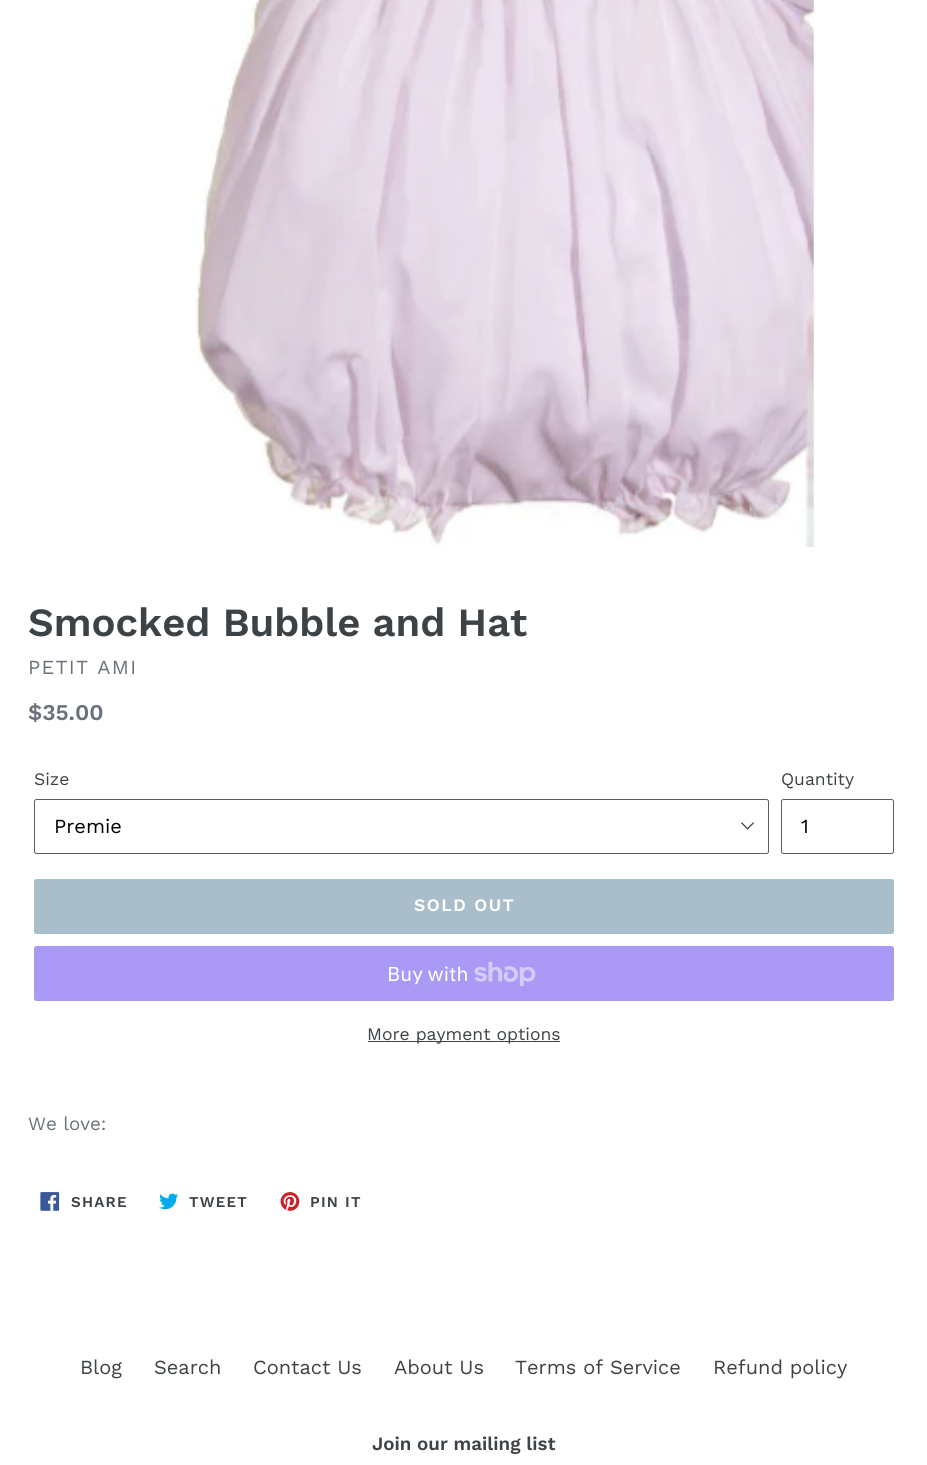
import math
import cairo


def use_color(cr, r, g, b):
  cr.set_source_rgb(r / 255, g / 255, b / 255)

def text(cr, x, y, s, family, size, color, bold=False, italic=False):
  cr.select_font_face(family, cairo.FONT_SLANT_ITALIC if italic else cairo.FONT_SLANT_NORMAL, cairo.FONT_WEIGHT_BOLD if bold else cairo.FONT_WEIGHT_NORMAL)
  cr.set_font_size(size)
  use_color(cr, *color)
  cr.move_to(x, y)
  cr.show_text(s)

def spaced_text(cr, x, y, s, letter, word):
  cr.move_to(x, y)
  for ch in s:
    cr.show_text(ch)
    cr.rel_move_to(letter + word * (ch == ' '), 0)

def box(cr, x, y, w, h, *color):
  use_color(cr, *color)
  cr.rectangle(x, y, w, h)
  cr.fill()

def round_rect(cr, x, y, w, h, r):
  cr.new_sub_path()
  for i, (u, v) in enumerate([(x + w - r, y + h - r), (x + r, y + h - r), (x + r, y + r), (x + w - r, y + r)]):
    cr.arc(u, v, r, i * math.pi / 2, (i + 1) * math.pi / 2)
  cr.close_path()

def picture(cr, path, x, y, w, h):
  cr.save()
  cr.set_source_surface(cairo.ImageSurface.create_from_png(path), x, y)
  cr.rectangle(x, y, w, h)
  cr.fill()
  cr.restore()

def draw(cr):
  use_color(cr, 255, 255, 255)
  cr.paint()
  picture(cr, "img_01.png", 194, 0, 620, 547)
  picture(cr, "img_02.png", 741, 822, 13, 8)
  round_rect(cr, 34.5, 799.5, 734, 54, 2)
  use_color(cr, 90, 94, 98)
  cr.set_line_width(1)
  cr.stroke()
  round_rect(cr, 781.5, 799.5, 112, 54, 2)
  cr.stroke()
  use_color(cr, 170, 189, 203)
  round_rect(cr, 34.5, 879.5, 859, 54, 2)
  cr.fill_preserve()
  cr.stroke()
  use_color(cr, 170, 153, 245)
  round_rect(cr, 34, 946, 860, 55, 2.5)
  cr.fill()
  picture(cr, "img_03.png", 474, 961, 62, 25)
  box(cr, 368, 1041, 192, 1, 61, 66, 70)
  picture(cr, "img_04.png", 40, 1192, 20, 19)
  picture(cr, "img_05.png", 159, 1193, 20, 17)
  picture(cr, "img_06.png", 280, 1192, 20, 19)
  text(cr, 28, 636, "Smocked Bubble and Hat", "Work Sans SemiBold", 40, (61, 66, 70))
  cr.select_font_face("Work Sans")
  cr.set_font_size(20)
  use_color(cr, 105, 114, 123)
  spaced_text(cr, 28, 674, "PETIT AMI", 1.25, 0)
  text(cr, 28, 720, "$35.00", "Work Sans SemiBold", 22.5, (105, 114, 123))
  text(cr, 34, 785, "Size", "Work Sans", 17.5, (61, 66, 70))
  text(cr, 54, 833, "Premie", "Work Sans", 20, (0, 0, 0))
  text(cr, 781, 785, "Quantity", "Work Sans", 17.5, (61, 66, 70))
  text(cr, 801, 833, "1", "Work Sans", 20, (0, 0, 0))
  cr.select_font_face("Work Sans SemiBold")
  cr.set_font_size(17.5)
  use_color(cr, 255, 255, 255)
  spaced_text(cr, 414, 911, "SOLD OUT", 1.5, 0)
  text(cr, 387, 981, "Buy with", "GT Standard", 20, (255, 255, 255))
  text(cr, 367, 1040, "More payment options", "Work Sans", 17.5, (61, 66, 70))
  text(cr, 28, 1130, "We love:", "Work Sans", 18.75, (105, 114, 123))
  cr.select_font_face("Work Sans SemiBold")
  cr.set_font_size(15)
  use_color(cr, 61, 66, 70)
  spaced_text(cr, 71, 1207, "SHARE", 1.25, 0)
  spaced_text(cr, 189, 1207, "TWEET", 1.25, 0)
  spaced_text(cr, 310, 1207, "PIN IT", 1.25, 0)
  text(cr, 80, 1374, "Blog", "Work Sans", 20, (61, 66, 70))
  text(cr, 154, 1374, "Search", "Work Sans", 20, (61, 66, 70))
  text(cr, 253, 1374, "Contact Us", "Work Sans", 20, (61, 66, 70))
  text(cr, 394, 1374, "About Us", "Work Sans", 20, (61, 66, 70))
  text(cr, 515, 1374, "Terms of Service", "Work Sans", 20, (61, 66, 70))
  text(cr, 713, 1374, "Refund policy", "Work Sans", 20, (61, 66, 70))
  text(cr, 372, 1450, "Join our mailing list", "Work Sans SemiBold", 18.75, (61, 66, 70))


surface = cairo.ImageSurface(cairo.FORMAT_RGB24, 927, 1465)
cr = cairo.Context(surface)
options = cairo.FontOptions()
options.set_hint_metrics(cairo.HINT_METRICS_OFF)
options.set_hint_style(cairo.HINT_STYLE_NONE)
cr.set_font_options(options)
cr.set_miter_limit(4)
draw(cr)
surface.write_to_png("out.png")
